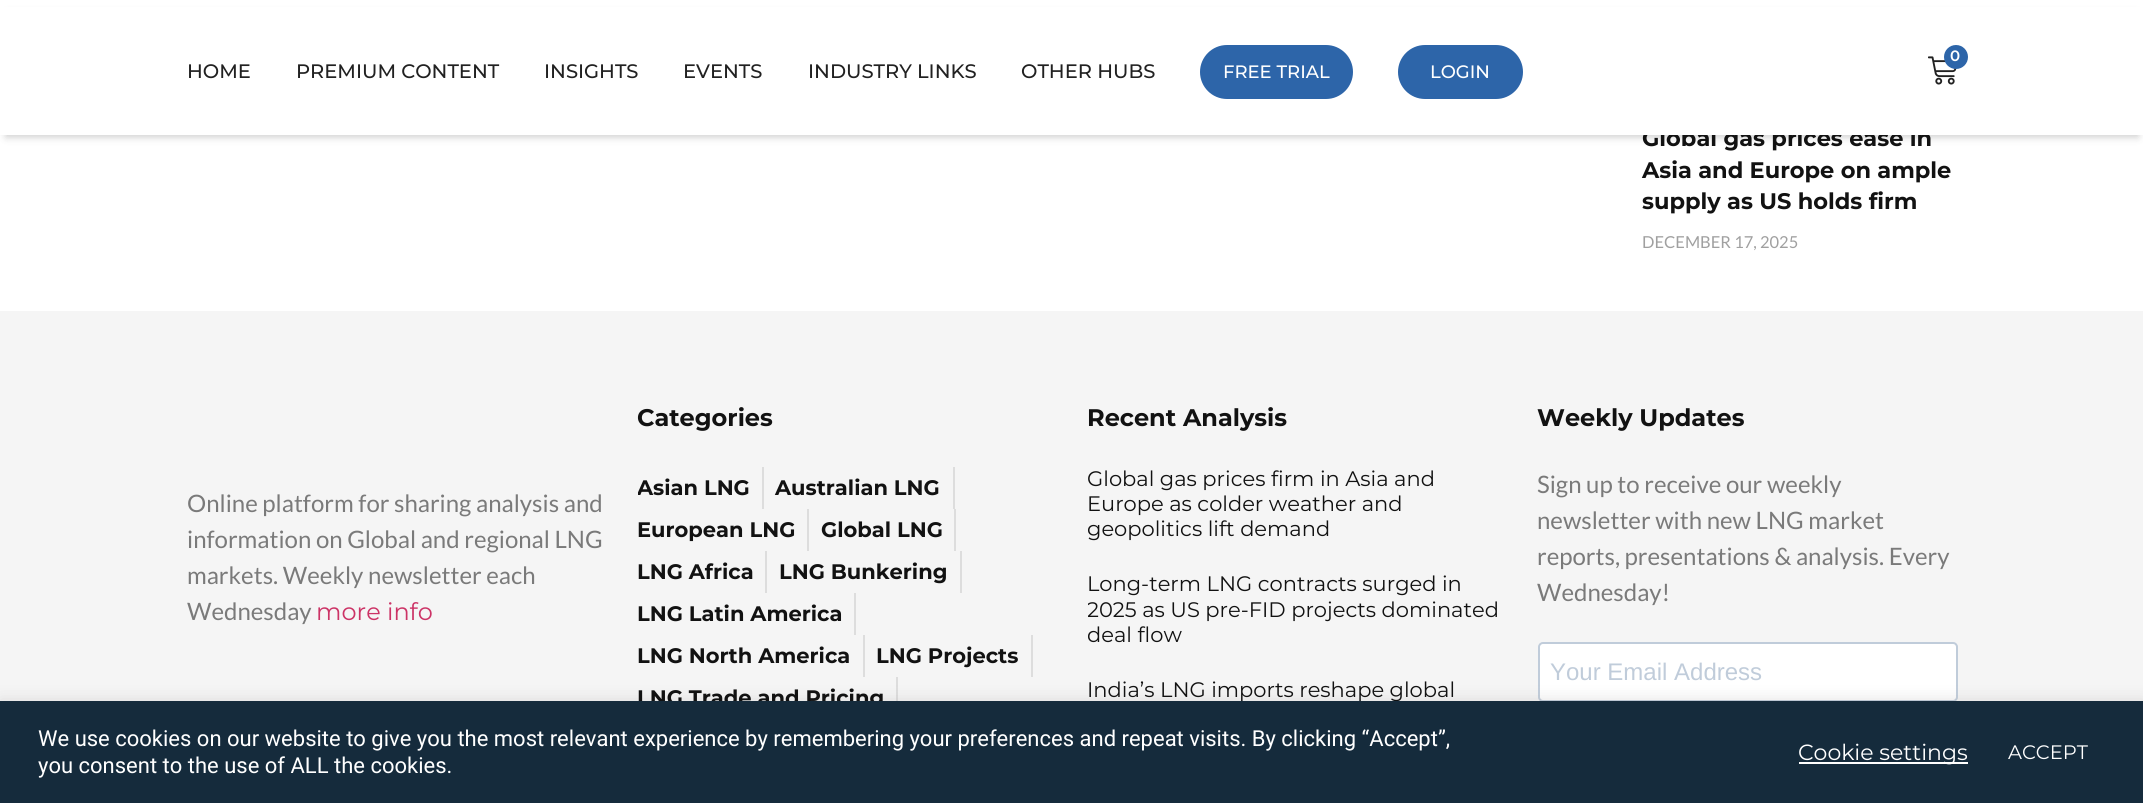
import math
import cairo


def use_color(cr, r, g, b):
  cr.set_source_rgb(r / 255, g / 255, b / 255)

def text(cr, x, y, s, family, size, color, bold=False, italic=False):
  cr.select_font_face(family, cairo.FONT_SLANT_ITALIC if italic else cairo.FONT_SLANT_NORMAL, cairo.FONT_WEIGHT_BOLD if bold else cairo.FONT_WEIGHT_NORMAL)
  cr.set_font_size(size)
  use_color(cr, *color)
  cr.move_to(x, y)
  cr.show_text(s)

def box(cr, x, y, w, h, *color):
  use_color(cr, *color)
  cr.rectangle(x, y, w, h)
  cr.fill()

def round_rect(cr, x, y, w, h, r):
  cr.new_sub_path()
  for i, (u, v) in enumerate([(x + w - r, y + h - r), (x + r, y + h - r), (x + r, y + r), (x + w - r, y + r)]):
    cr.arc(u, v, r, i * math.pi / 2, (i + 1) * math.pi / 2)
  cr.close_path()

def shadow(cr, x, y, w, h, r, blur, alpha):
  cr.push_group_with_content(cairo.CONTENT_ALPHA)
  cr.set_operator(cairo.OPERATOR_SOURCE)
  for i in range(15, -16, -2):
    e = blur * i / 6
    if min(w, h) + 2 * e > 0:
      cr.set_source_rgba(0, 0, 0, alpha * math.erfc((i - 1) / 8.5) / 2)
      round_rect(cr, x - e, y - e, w + 2 * e, h + 2 * e, max(0, min(r + e + blur * .6, min(w, h) / 2 + e)))
      cr.fill()
  cr.mask(cr.pop_group())

def picture(cr, path, x, y, w, h):
  cr.save()
  cr.set_source_surface(cairo.ImageSurface.create_from_png(path), x, y)
  cr.rectangle(x, y, w, h)
  cr.fill()
  cr.restore()

def draw(cr):
  use_color(cr, 255, 255, 255)
  cr.paint()
  use_color(cr, 0, 0, 0)
  shadow(cr, 6, 14, 2132, 123, 0, 4, 0.2)
  box(cr, 0, 311, 2143, 390, 245, 245, 245)
  box(cr, 762, 467, 2, 42, 221, 221, 221)
  box(cr, 953, 467, 2, 42, 221, 221, 221)
  box(cr, 807, 509, 2, 42, 221, 221, 221)
  box(cr, 954, 509, 2, 42, 221, 221, 221)
  box(cr, 765, 551, 2, 42, 221, 221, 221)
  box(cr, 960, 551, 2, 42, 221, 221, 221)
  box(cr, 854, 593, 2, 42, 221, 221, 221)
  box(cr, 863, 635, 2, 42, 221, 221, 221)
  box(cr, 1031, 635, 2, 42, 221, 221, 221)
  box(cr, 896, 677, 2, 24, 221, 221, 221)
  use_color(cr, 255, 255, 255)
  round_rect(cr, 1539, 643, 418, 58, 4)
  cr.fill_preserve()
  use_color(cr, 192, 204, 218)
  cr.stroke()
  use_color(cr, 172, 171, 171)
  shadow(cr, 0, 699, 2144, 104, 0, 7.5, 0.3)
  text(cr, 1642, 146, "Global gas prices ease in", "Montserrat", 22.5, (18, 18, 18), bold=True)
  box(cr, 0, 7, 2143, 128, 255, 255, 255)
  use_color(cr, 45, 101, 169)
  round_rect(cr, 1398, 45, 125, 54, 27)
  cr.fill()
  text(cr, 1430, 78, "LOGIN", "Montserrat Medium", 18, (255, 255, 255))
  use_color(cr, 45, 101, 169)
  round_rect(cr, 1200, 45, 153, 54, 27)
  cr.fill()
  text(cr, 1223, 78, "FREE TRIAL", "Montserrat Medium", 18, (255, 255, 255))
  text(cr, 1021, 78, "OTHER HUBS", "Montserrat Medium", 19.5, (33, 33, 33))
  text(cr, 808, 78, "INDUSTRY LINKS", "Montserrat Medium", 19.5, (33, 33, 33))
  text(cr, 683, 78, "EVENTS", "Montserrat Medium", 19.5, (33, 33, 33))
  text(cr, 544, 78, "INSIGHTS", "Montserrat Medium", 19.5, (33, 33, 33))
  text(cr, 296, 78, "PREMIUM CONTENT", "Montserrat Medium", 19.5, (33, 33, 33))
  text(cr, 187, 78, "HOME", "Montserrat Medium", 19.5, (33, 33, 33))
  picture(cr, "img_01.png", 1928, 56, 29, 29)
  use_color(cr, 45, 101, 169)
  cr.arc(1956, 57, 12, 0, 2 * math.pi)
  cr.fill()
  text(cr, 1950, 61, "0", "Montserrat SemiBold", 15, (255, 255, 255))
  text(cr, 1642, 178, "Asia and Europe on ample", "Montserrat", 22.5, (18, 18, 18), bold=True)
  text(cr, 1642, 209, "supply as US holds firm", "Montserrat", 22.5, (18, 18, 18), bold=True)
  text(cr, 1642, 248, "DECEMBER 17, 2025", "Lato", 16.5, (160, 160, 160))
  text(cr, 187, 512, "Online platform for sharing analysis and", "Lato", 24, (122, 122, 122))
  text(cr, 187, 548, "information on Global and regional LNG", "Lato", 24, (122, 122, 122))
  text(cr, 187, 584, "markets. Weekly newsletter each", "Lato", 24, (122, 122, 122))
  text(cr, 187, 620, "Wednesday", "Lato", 24, (122, 122, 122))
  text(cr, 316, 620, "more info", "Montserrat", 24, (204, 51, 102))
  text(cr, 637, 426, "Categories", "Montserrat", 24, (18, 18, 18), bold=True)
  cr.save()
  cr.rectangle(638, 467, 420, 336)
  cr.clip()
  text(cr, 637, 495, "Asian LNG", "Montserrat", 21, (18, 18, 18), bold=True)
  cr.restore()
  text(cr, 775, 495, "Australian LNG", "Montserrat", 21, (18, 18, 18), bold=True)
  text(cr, 637, 537, "European LNG", "Montserrat", 21, (18, 18, 18), bold=True)
  text(cr, 821, 537, "Global LNG", "Montserrat", 21, (18, 18, 18), bold=True)
  text(cr, 637, 579, "LNG Africa", "Montserrat", 21, (18, 18, 18), bold=True)
  text(cr, 779, 579, "LNG Bunkering", "Montserrat", 21, (18, 18, 18), bold=True)
  text(cr, 637, 621, "LNG Latin America", "Montserrat", 21, (18, 18, 18), bold=True)
  text(cr, 637, 663, "LNG North America", "Montserrat", 21, (18, 18, 18), bold=True)
  text(cr, 876, 663, "LNG Projects", "Montserrat", 21, (18, 18, 18), bold=True)
  text(cr, 637, 705, "LNG Trade and Pricing", "Montserrat", 21, (18, 18, 18), bold=True)
  text(cr, 1087, 426, "Recent Analysis", "Montserrat", 24, (18, 18, 18), bold=True)
  text(cr, 1087, 486, "Global gas prices firm in Asia and", "Montserrat", 21, (18, 18, 18))
  text(cr, 1087, 511, "Europe as colder weather and", "Montserrat", 21, (18, 18, 18))
  cr.save()
  cr.rectangle(1088, 467, 420, 75)
  cr.clip()
  text(cr, 1087, 536, "geopolitics lift demand", "Montserrat", 21, (18, 18, 18))
  cr.restore()
  text(cr, 1087, 591, "Long-term LNG contracts surged in", "Montserrat", 21, (18, 18, 18))
  cr.save()
  cr.rectangle(1088, 572, 420, 76)
  cr.clip()
  text(cr, 1087, 617, "2025 as US pre-FID projects dominated", "Montserrat", 21, (18, 18, 18))
  text(cr, 1087, 642, "deal flow", "Montserrat", 21, (18, 18, 18))
  cr.restore()
  text(cr, 1087, 697, "India’s LNG imports reshape global", "Montserrat", 21, (18, 18, 18))
  text(cr, 1537, 426, "Weekly Updates", "Montserrat", 24, (18, 18, 18), bold=True)
  text(cr, 1537, 493, "Sign up to receive our weekly", "Lato", 24, (122, 122, 122))
  text(cr, 1537, 529, "newsletter with new LNG market", "Lato", 24, (122, 122, 122))
  text(cr, 1537, 565, "reports, presentations & analysis. Every", "Lato", 24, (122, 122, 122))
  text(cr, 1537, 601, "Wednesday!", "Lato", 24, (122, 122, 122))
  text(cr, 1550, 680, "Your Email Address", "Liberation Sans", 24, (192, 204, 218))
  box(cr, 0, 701, 2143, 102, 21, 43, 60)
  text(cr, 38, 746, "We use cookies on our website to give you the most relevant experience by remembering your preferences and repeat visits. By clicking “Accept”,", "Roboto", 22, (255, 255, 255))
  text(cr, 38, 773, "you consent to the use of ALL the cookies.", "Roboto", 22, (255, 255, 255))
  box(cr, 1799, 762, 169, 2, 255, 255, 255)
  text(cr, 1798, 760, "Cookie settings", "Montserrat", 22, (255, 255, 255))
  text(cr, 2008, 759, "ACCEPT", "Montserrat", 19.5, (255, 255, 255))


surface = cairo.ImageSurface(cairo.FORMAT_RGB24, 2143, 803)
cr = cairo.Context(surface)
options = cairo.FontOptions()
options.set_hint_metrics(cairo.HINT_METRICS_OFF)
options.set_hint_style(cairo.HINT_STYLE_NONE)
cr.set_font_options(options)
cr.set_miter_limit(4)
draw(cr)
surface.write_to_png("out.png")
